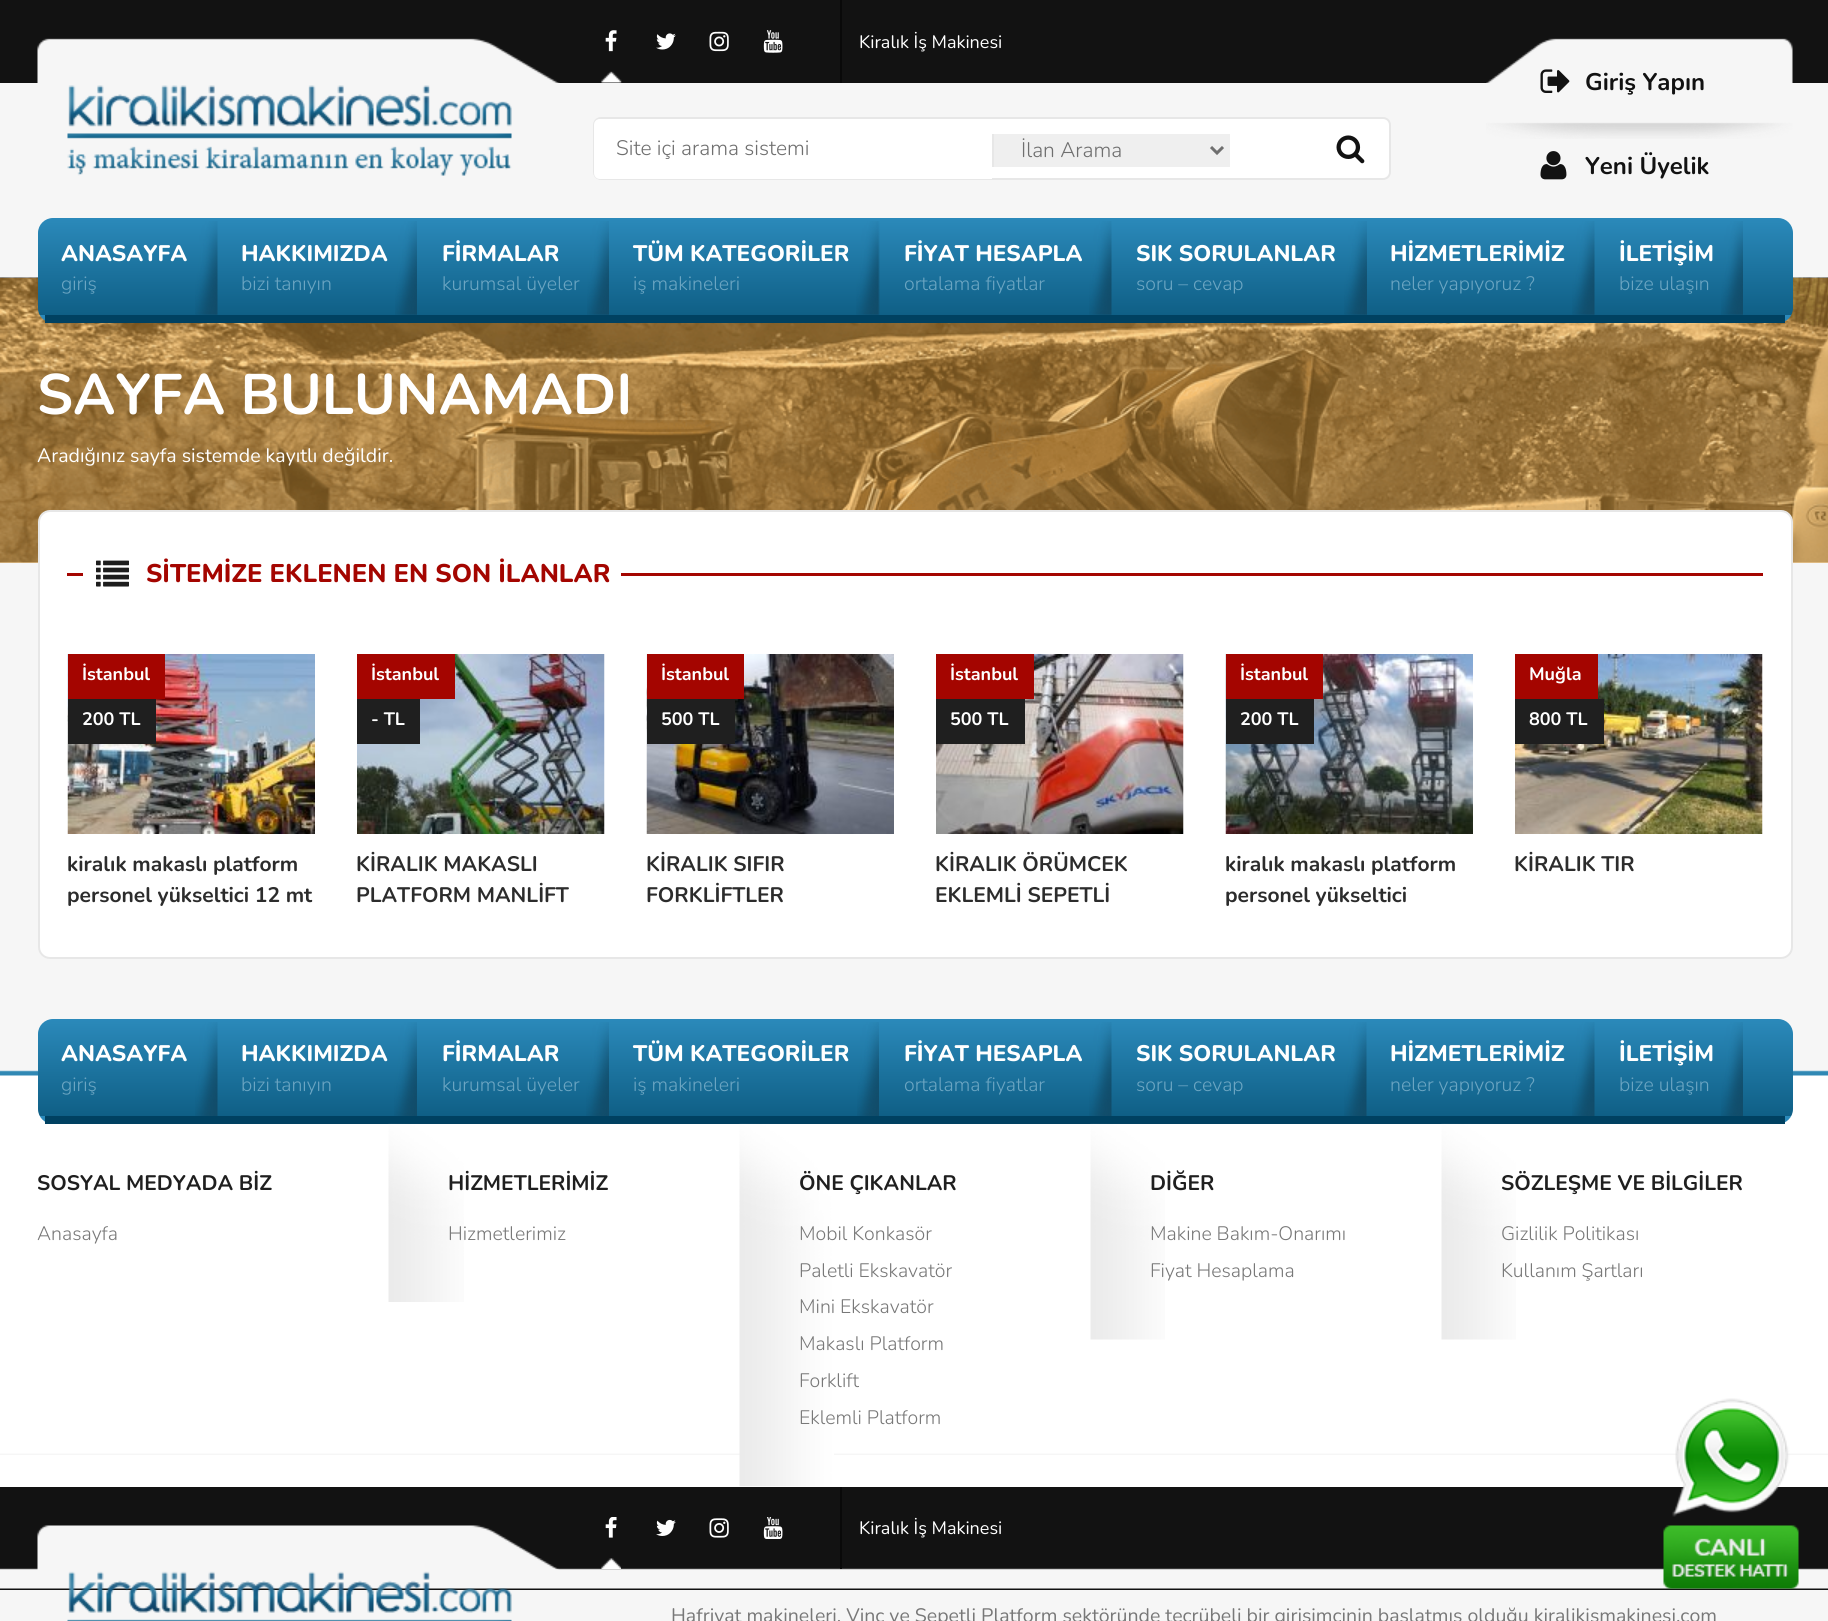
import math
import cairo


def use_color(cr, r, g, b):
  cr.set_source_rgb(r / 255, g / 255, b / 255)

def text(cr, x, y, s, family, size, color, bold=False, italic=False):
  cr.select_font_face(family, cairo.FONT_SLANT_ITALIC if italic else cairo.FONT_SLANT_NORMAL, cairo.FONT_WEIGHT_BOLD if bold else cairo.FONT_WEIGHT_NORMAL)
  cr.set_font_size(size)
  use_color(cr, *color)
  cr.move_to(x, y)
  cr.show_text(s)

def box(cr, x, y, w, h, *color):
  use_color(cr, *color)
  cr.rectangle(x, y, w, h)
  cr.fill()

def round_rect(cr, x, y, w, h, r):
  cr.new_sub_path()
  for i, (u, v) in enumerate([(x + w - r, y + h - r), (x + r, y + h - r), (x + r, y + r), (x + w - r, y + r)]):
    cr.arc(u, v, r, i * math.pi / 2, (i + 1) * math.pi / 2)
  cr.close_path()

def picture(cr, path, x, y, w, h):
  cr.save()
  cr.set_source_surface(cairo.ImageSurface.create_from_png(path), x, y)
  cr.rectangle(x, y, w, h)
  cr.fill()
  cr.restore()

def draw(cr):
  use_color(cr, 246, 246, 246)
  cr.paint()
  box(cr, 0, 562, 1828, 1, 248, 216, 168)
  box(cr, 0, 0, 1828, 83, 18, 18, 18)
  picture(cr, "img_01.png", 37, 38, 523, 45)
  picture(cr, "img_02.png", 67, 85, 445, 91)
  picture(cr, "img_03.png", 601, 71, 21, 12)
  picture(cr, "img_04.png", 605, 30, 12, 22)
  picture(cr, "img_05.png", 656, 33, 20, 17)
  picture(cr, "img_06.png", 709, 31, 20, 21)
  picture(cr, "img_07.png", 763, 30, 20, 23)
  box(cr, 840, 0, 2, 83, 9, 9, 9)
  use_color(cr, 255, 255, 255)
  round_rect(cr, 594, 118, 796, 61, 7)
  cr.fill_preserve()
  use_color(cr, 231, 231, 231)
  cr.stroke()
  use_color(cr, 255, 255, 255)
  cr.new_path()
  cr.move_to(600, 119)
  cr.line_to(992, 119)
  cr.line_to(992, 179)
  cr.line_to(600, 179)
  cr.curve_to(596.5, 179, 594, 176.5, 594, 173)
  cr.line_to(594, 125)
  cr.curve_to(594, 121.5, 596.5, 119, 600, 119)
  cr.close_path()
  cr.fill()
  box(cr, 994, 134, 236, 33, 239, 239, 239)
  box(cr, 992, 134, 2, 33, 231, 231, 231)
  cr.new_path()
  cr.move_to(1211, 147)
  cr.line_to(1217, 153)
  cr.line_to(1223, 147)
  use_color(cr, 111, 111, 111)
  cr.set_line_width(3)
  cr.stroke()
  picture(cr, "img_08.png", 1336, 135, 29, 29)
  picture(cr, "img_09.png", 1486, 38, 307, 101)
  picture(cr, "img_10.png", 1540, 69, 30, 24)
  picture(cr, "img_11.png", 1540, 151, 27, 29)
  picture(cr, "img_17.png", 0, 277, 1828, 286)
  cr.save()
  round_rect(cr, 38, 218, 1755, 105, 15)
  cr.clip()
  gradient = cairo.LinearGradient(915, 217, 915, 315)
  gradient.add_color_stop_rgba(0, 0.169, 0.541, 0.733, 1)
  gradient.add_color_stop_rgba(1, 0.059, 0.373, 0.525, 1)
  cr.set_source(gradient)
  cr.new_path()
  cr.move_to(53, 218)
  cr.line_to(1778, 218)
  cr.curve_to(1786.5, 218, 1793, 224.5, 1793, 233)
  cr.line_to(1793, 315)
  cr.line_to(38, 315)
  cr.line_to(38, 233)
  cr.curve_to(38, 224.5, 44.5, 218, 53, 218)
  cr.close_path()
  cr.fill()
  gradient = cairo.LinearGradient(915, 315, 915, 413)
  gradient.add_color_stop_rgba(0, 0.169, 0.541, 0.733, 1)
  gradient.add_color_stop_rgba(1, 0.059, 0.373, 0.525, 1)
  cr.set_source(gradient)
  cr.rectangle(38, 315, 1755, 7)
  cr.fill()
  cr.restore()
  box(cr, 45, 315, 1740, 8, 0, 65, 97)
  picture(cr, "img_12.png", 195, 221, 23, 94)
  picture(cr, "img_13.png", 395, 221, 22, 94)
  picture(cr, "img_13.png", 587, 221, 22, 94)
  picture(cr, "img_14.png", 856, 221, 24, 94)
  picture(cr, "img_15.png", 1089, 221, 23, 94)
  picture(cr, "img_16.png", 1344, 221, 23, 94)
  picture(cr, "img_15.png", 1572, 221, 23, 94)
  picture(cr, "img_13.png", 1721, 221, 22, 94)
  use_color(cr, 255, 255, 255)
  round_rect(cr, 39, 511, 1753, 447, 11)
  cr.fill_preserve()
  use_color(cr, 231, 231, 231)
  cr.set_line_width(2)
  cr.stroke()
  box(cr, 67, 573, 1696, 3, 164, 5, 0)
  box(cr, 83, 573, 538, 3, 255, 255, 255)
  picture(cr, "img_18.png", 96, 560, 33, 27)
  picture(cr, "img_19.png", 67, 654, 248, 180)
  box(cr, 68, 654, 97, 45, 164, 5, 0)
  box(cr, 68, 699, 88, 45, 31, 31, 31)
  picture(cr, "img_20.png", 357, 654, 248, 180)
  box(cr, 357, 654, 98, 45, 164, 5, 0)
  box(cr, 357, 699, 63, 45, 31, 31, 31)
  picture(cr, "img_21.png", 646, 654, 248, 180)
  box(cr, 647, 654, 97, 45, 164, 5, 0)
  box(cr, 647, 699, 88, 45, 31, 31, 31)
  picture(cr, "img_22.png", 936, 654, 248, 180)
  box(cr, 936, 654, 98, 45, 164, 5, 0)
  box(cr, 936, 699, 89, 45, 31, 31, 31)
  picture(cr, "img_23.png", 1225, 654, 248, 180)
  box(cr, 1226, 654, 97, 45, 164, 5, 0)
  box(cr, 1226, 699, 88, 45, 31, 31, 31)
  picture(cr, "img_24.png", 1515, 654, 248, 180)
  box(cr, 1515, 654, 83, 45, 164, 5, 0)
  box(cr, 1515, 699, 89, 45, 31, 31, 31)
  box(cr, 0, 1455, 1828, 32, 255, 255, 255)
  picture(cr, "img_25.png", 0, 1019, 1828, 436)
  cr.save()
  round_rect(cr, 38, 1019, 1755, 105, 15)
  cr.clip()
  gradient = cairo.LinearGradient(915, 1018, 915, 1116)
  gradient.add_color_stop_rgba(0, 0.169, 0.541, 0.733, 1)
  gradient.add_color_stop_rgba(1, 0.059, 0.373, 0.525, 1)
  cr.set_source(gradient)
  cr.new_path()
  cr.move_to(53, 1019)
  cr.line_to(1778, 1019)
  cr.curve_to(1786.5, 1019, 1793, 1025.5, 1793, 1034)
  cr.line_to(1793, 1116)
  cr.line_to(38, 1116)
  cr.line_to(38, 1034)
  cr.curve_to(38, 1025.5, 44.5, 1019, 53, 1019)
  cr.close_path()
  cr.fill()
  gradient = cairo.LinearGradient(915, 1116, 915, 1214)
  gradient.add_color_stop_rgba(0, 0.169, 0.541, 0.733, 1)
  gradient.add_color_stop_rgba(1, 0.059, 0.373, 0.525, 1)
  cr.set_source(gradient)
  cr.rectangle(38, 1116, 1755, 7)
  cr.fill()
  cr.restore()
  box(cr, 45, 1116, 1740, 8, 0, 65, 97)
  picture(cr, "img_26.png", 195, 1022, 23, 94)
  picture(cr, "img_27.png", 394, 1022, 23, 94)
  picture(cr, "img_27.png", 586, 1022, 23, 94)
  picture(cr, "img_28.png", 857, 1022, 22, 94)
  picture(cr, "img_29.png", 1089, 1022, 23, 94)
  picture(cr, "img_29.png", 1344, 1022, 23, 94)
  picture(cr, "img_26.png", 1572, 1022, 23, 94)
  picture(cr, "img_28.png", 1721, 1022, 22, 94)
  picture(cr, "img_30.png", 388, 1123, 76, 179)
  picture(cr, "img_31.png", 739, 1123, 95, 364)
  picture(cr, "img_32.png", 1090, 1123, 75, 217)
  picture(cr, "img_32.png", 1441, 1123, 75, 217)
  picture(cr, "img_33.png", 0, 1487, 1828, 103)
  picture(cr, "img_34.png", 37, 1525, 522, 45)
  picture(cr, "img_35.png", 67, 1571, 445, 50)
  picture(cr, "img_36.png", 601, 1558, 20, 11)
  picture(cr, "img_37.png", 605, 1517, 12, 21)
  picture(cr, "img_38.png", 656, 1519, 20, 17)
  picture(cr, "img_39.png", 709, 1518, 20, 20)
  picture(cr, "img_40.png", 763, 1517, 20, 22)
  box(cr, 840, 1487, 2, 82, 9, 9, 9)
  picture(cr, "img_41.png", 1663, 1398, 136, 191)
  text(cr, 859, 48, "Kiralık İş Makinesi", "Nunito", 18, (255, 255, 255))
  text(cr, 616, 155, "Site içi arama sistemi", "Nunito Light", 21, (111, 111, 111))
  text(cr, 1021, 157, "İlan Arama", "Nunito Light", 21, (111, 111, 111))
  text(cr, 1585, 90, "Giriş Yapın", "Nunito", 24, (18, 18, 18), bold=True)
  text(cr, 1585, 174, "Yeni Üyelik", "Nunito", 24, (18, 18, 18), bold=True)
  text(cr, 61, 261, "ANASAYFA", "Nunito ExtraBold", 22.5, (255, 255, 255))
  text(cr, 61, 290, "giriş", "Nunito Light", 19.5, (107, 165, 194))
  text(cr, 241, 261, "HAKKIMIZDA", "Nunito ExtraBold", 22.5, (255, 255, 255))
  text(cr, 241, 290, "bizi tanıyın", "Nunito Light", 19.5, (107, 165, 194))
  text(cr, 442, 261, "FİRMALAR", "Nunito ExtraBold", 22.5, (255, 255, 255))
  text(cr, 442, 290, "kurumsal üyeler", "Nunito Light", 19.5, (107, 165, 194))
  text(cr, 633, 261, "TÜM KATEGORİLER", "Nunito ExtraBold", 22.5, (255, 255, 255))
  text(cr, 633, 290, "iş makineleri", "Nunito Light", 19.5, (107, 165, 194))
  text(cr, 904, 261, "FİYAT HESAPLA", "Nunito ExtraBold", 22.5, (255, 255, 255))
  text(cr, 904, 290, "ortalama fiyatlar", "Nunito Light", 19.5, (107, 165, 194))
  text(cr, 1136, 261, "SIK SORULANLAR", "Nunito ExtraBold", 22.5, (255, 255, 255))
  text(cr, 1136, 290, "soru – cevap", "Nunito Light", 19.5, (107, 165, 194))
  text(cr, 1390, 261, "HİZMETLERİMİZ", "Nunito ExtraBold", 22.5, (255, 255, 255))
  text(cr, 1390, 290, "neler yapıyoruz ?", "Nunito Light", 19.5, (107, 165, 194))
  text(cr, 1619, 261, "İLETİŞİM", "Nunito ExtraBold", 22.5, (255, 255, 255))
  text(cr, 1619, 290, "bize ulaşın", "Nunito Light", 19.5, (107, 165, 194))
  text(cr, 37, 414, "SAYFA BULUNAMADI", "Nunito", 57, (255, 255, 255), bold=True)
  text(cr, 37, 462, "Aradığınız sayfa sistemde kayıtlı değildir.", "Nunito", 19.5, (255, 255, 255))
  text(cr, 146, 582, "SİTEMİZE EKLENEN EN SON İLANLAR", "Nunito ExtraBold", 25.5, (164, 5, 0))
  text(cr, 82, 680, "İstanbul", "Nunito", 18, (255, 255, 255), bold=True)
  text(cr, 82, 725, "200 TL", "Nunito", 18, (255, 255, 255), bold=True)
  text(cr, 67, 871, "kiralık makaslı platform", "Nunito", 21, (44, 44, 44), bold=True)
  text(cr, 67, 902, "personel yükseltici 12 mt", "Nunito", 21, (44, 44, 44), bold=True)
  text(cr, 371, 680, "İstanbul", "Nunito", 18, (255, 255, 255), bold=True)
  text(cr, 371, 725, "- TL", "Nunito", 18, (255, 255, 255), bold=True)
  text(cr, 356, 871, "KİRALIK MAKASLI", "Nunito", 21, (44, 44, 44), bold=True)
  text(cr, 356, 902, "PLATFORM MANLİFT", "Nunito", 21, (44, 44, 44), bold=True)
  text(cr, 661, 680, "İstanbul", "Nunito", 18, (255, 255, 255), bold=True)
  text(cr, 661, 725, "500 TL", "Nunito", 18, (255, 255, 255), bold=True)
  text(cr, 646, 871, "KİRALIK SIFIR", "Nunito", 21, (44, 44, 44), bold=True)
  text(cr, 646, 902, "FORKLİFTLER", "Nunito", 21, (44, 44, 44), bold=True)
  text(cr, 950, 680, "İstanbul", "Nunito", 18, (255, 255, 255), bold=True)
  text(cr, 950, 725, "500 TL", "Nunito", 18, (255, 255, 255), bold=True)
  text(cr, 935, 871, "KİRALIK ÖRÜMCEK", "Nunito", 21, (44, 44, 44), bold=True)
  text(cr, 935, 902, "EKLEMLİ SEPETLİ", "Nunito", 21, (44, 44, 44), bold=True)
  text(cr, 1240, 680, "İstanbul", "Nunito", 18, (255, 255, 255), bold=True)
  text(cr, 1240, 725, "200 TL", "Nunito", 18, (255, 255, 255), bold=True)
  text(cr, 1225, 871, "kiralık makaslı platform", "Nunito", 21, (44, 44, 44), bold=True)
  text(cr, 1225, 902, "personel yükseltici", "Nunito", 21, (44, 44, 44), bold=True)
  text(cr, 1529, 680, "Muğla", "Nunito", 18, (255, 255, 255), bold=True)
  text(cr, 1529, 725, "800 TL", "Nunito", 18, (255, 255, 255), bold=True)
  text(cr, 1514, 871, "KİRALIK TIR", "Nunito", 21, (44, 44, 44), bold=True)
  text(cr, 61, 1061, "ANASAYFA", "Nunito ExtraBold", 22.5, (255, 255, 255))
  text(cr, 61, 1091, "giriş", "Nunito Light", 19.5, (107, 165, 194))
  text(cr, 241, 1061, "HAKKIMIZDA", "Nunito ExtraBold", 22.5, (255, 255, 255))
  text(cr, 241, 1091, "bizi tanıyın", "Nunito Light", 19.5, (107, 165, 194))
  text(cr, 442, 1061, "FİRMALAR", "Nunito ExtraBold", 22.5, (255, 255, 255))
  text(cr, 442, 1091, "kurumsal üyeler", "Nunito Light", 19.5, (107, 165, 194))
  text(cr, 633, 1061, "TÜM KATEGORİLER", "Nunito ExtraBold", 22.5, (255, 255, 255))
  text(cr, 633, 1091, "iş makineleri", "Nunito Light", 19.5, (107, 165, 194))
  text(cr, 904, 1061, "FİYAT HESAPLA", "Nunito ExtraBold", 22.5, (255, 255, 255))
  text(cr, 904, 1091, "ortalama fiyatlar", "Nunito Light", 19.5, (107, 165, 194))
  text(cr, 1136, 1061, "SIK SORULANLAR", "Nunito ExtraBold", 22.5, (255, 255, 255))
  text(cr, 1136, 1091, "soru – cevap", "Nunito Light", 19.5, (107, 165, 194))
  text(cr, 1390, 1061, "HİZMETLERİMİZ", "Nunito ExtraBold", 22.5, (255, 255, 255))
  text(cr, 1390, 1091, "neler yapıyoruz ?", "Nunito Light", 19.5, (107, 165, 194))
  text(cr, 1619, 1061, "İLETİŞİM", "Nunito ExtraBold", 22.5, (255, 255, 255))
  text(cr, 1619, 1091, "bize ulaşın", "Nunito Light", 19.5, (107, 165, 194))
  text(cr, 37, 1190, "SOSYAL MEDYADA BİZ", "Nunito", 21, (31, 31, 31), bold=True)
  text(cr, 37, 1240, "Anasayfa", "Nunito Light", 19.5, (120, 120, 120))
  text(cr, 448, 1190, "HİZMETLERİMİZ", "Nunito", 21, (31, 31, 31), bold=True)
  text(cr, 448, 1240, "Hizmetlerimiz", "Nunito Light", 19.5, (120, 120, 120))
  text(cr, 799, 1190, "ÖNE ÇIKANLAR", "Nunito", 21, (31, 31, 31), bold=True)
  text(cr, 799, 1240, "Mobil Konkasör", "Nunito Light", 19.5, (120, 120, 120))
  text(cr, 799, 1277, "Paletli Ekskavatör", "Nunito Light", 19.5, (120, 120, 120))
  text(cr, 799, 1313, "Mini Ekskavatör", "Nunito Light", 19.5, (120, 120, 120))
  text(cr, 799, 1350, "Makaslı Platform", "Nunito Light", 19.5, (120, 120, 120))
  text(cr, 799, 1387, "Forklift", "Nunito Light", 19.5, (120, 120, 120))
  text(cr, 799, 1424, "Eklemli Platform", "Nunito Light", 19.5, (120, 120, 120))
  text(cr, 1150, 1190, "DİĞER", "Nunito", 21, (31, 31, 31), bold=True)
  text(cr, 1150, 1240, "Makine Bakım-Onarımı", "Nunito Light", 19.5, (120, 120, 120))
  text(cr, 1150, 1277, "Fiyat Hesaplama", "Nunito Light", 19.5, (120, 120, 120))
  text(cr, 1501, 1190, "SÖZLEŞME VE BİLGİLER", "Nunito", 21, (31, 31, 31), bold=True)
  text(cr, 1501, 1240, "Gizlilik Politikası", "Nunito Light", 19.5, (120, 120, 120))
  text(cr, 1501, 1277, "Kullanım Şartları", "Nunito Light", 19.5, (120, 120, 120))
  text(cr, 859, 1534, "Kiralık İş Makinesi", "Nunito", 18, (255, 255, 255))
  text(cr, 671, 1622, "Hafriyat makineleri, Vinç ve Sepetli Platform sektöründe tecrübeli bir girişimcinin başlatmış olduğu kiralikismakinesi.com", "Nunito", 19.5, (120, 120, 120))


surface = cairo.ImageSurface(cairo.FORMAT_RGB24, 1828, 1621)
cr = cairo.Context(surface)
options = cairo.FontOptions()
options.set_hint_metrics(cairo.HINT_METRICS_OFF)
options.set_hint_style(cairo.HINT_STYLE_NONE)
cr.set_font_options(options)
cr.set_miter_limit(4)
draw(cr)
surface.write_to_png("out.png")
